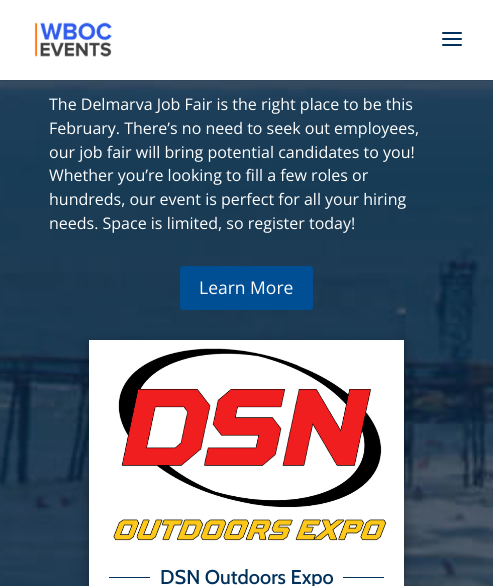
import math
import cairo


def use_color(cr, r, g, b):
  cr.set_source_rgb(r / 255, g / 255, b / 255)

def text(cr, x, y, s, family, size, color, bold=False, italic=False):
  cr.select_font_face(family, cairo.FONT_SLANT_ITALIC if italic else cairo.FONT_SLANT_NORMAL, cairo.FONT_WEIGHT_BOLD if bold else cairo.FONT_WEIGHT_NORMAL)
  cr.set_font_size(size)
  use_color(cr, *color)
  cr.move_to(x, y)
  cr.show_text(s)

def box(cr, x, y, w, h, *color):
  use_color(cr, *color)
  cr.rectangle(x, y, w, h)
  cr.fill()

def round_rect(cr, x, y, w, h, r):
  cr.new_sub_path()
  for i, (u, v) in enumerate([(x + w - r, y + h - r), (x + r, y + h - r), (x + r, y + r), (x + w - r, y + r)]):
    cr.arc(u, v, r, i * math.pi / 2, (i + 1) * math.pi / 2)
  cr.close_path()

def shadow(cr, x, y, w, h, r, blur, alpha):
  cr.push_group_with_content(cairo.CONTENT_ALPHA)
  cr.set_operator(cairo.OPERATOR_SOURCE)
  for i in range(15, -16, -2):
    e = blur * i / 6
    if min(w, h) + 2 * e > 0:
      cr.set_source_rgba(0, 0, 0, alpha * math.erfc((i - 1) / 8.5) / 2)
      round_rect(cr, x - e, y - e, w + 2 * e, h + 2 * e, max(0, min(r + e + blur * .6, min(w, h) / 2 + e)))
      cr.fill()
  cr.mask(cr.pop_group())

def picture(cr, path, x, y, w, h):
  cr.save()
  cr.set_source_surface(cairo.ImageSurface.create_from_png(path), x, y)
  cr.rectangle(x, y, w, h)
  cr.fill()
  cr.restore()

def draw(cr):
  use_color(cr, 255, 255, 255)
  cr.paint()
  picture(cr, "img_03.png", 0, 80, 493, 506)
  cr.set_source_rgba(0, 0, 0, 0.1)
  cr.rectangle(0, 80, 493, 1)
  cr.fill()
  picture(cr, "img_01.png", 34, 22, 78, 35)
  picture(cr, "img_02.png", 442, 32, 20, 14)
  use_color(cr, 0, 79, 149)
  round_rect(cr, 181, 267, 131, 42, 2)
  cr.fill_preserve()
  cr.stroke()
  use_color(cr, 0, 0, 0)
  shadow(cr, 89, 346, 315, 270, 0, 10, 0.19)
  shadow(cr, 89, 344, 315, 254, 0, 4, 0.2)
  box(cr, 89, 340, 315, 246, 255, 255, 255)
  picture(cr, "img_04.png", 113, 348, 274, 193)
  box(cr, 109, 577, 41, 1, 0, 48, 91)
  box(cr, 343, 577, 41, 1, 0, 48, 91)
  text(cr, 49, 110, "The Delmarva Job Fair is the right place to be this", "Open Sans", 16, (255, 255, 255))
  text(cr, 49, 134, "February. There’s no need to seek out employees,", "Open Sans", 16, (255, 255, 255))
  text(cr, 49, 158, "our job fair will bring potential candidates to you!", "Open Sans", 16, (255, 255, 255))
  text(cr, 49, 181, "Whether you’re looking to fill a few roles or", "Open Sans", 16, (255, 255, 255))
  text(cr, 49, 205, "hundreds, our event is perfect for all your hiring", "Open Sans", 16, (255, 255, 255))
  text(cr, 49, 229, "needs. Space is limited, so register today!", "Open Sans", 16, (255, 255, 255))
  text(cr, 199, 294, "Learn More", "Open Sans", 17.5, (255, 255, 255))
  text(cr, 160, 584, "DSN Outdoors Expo", "Cabin Medium", 20, (0, 48, 91))


surface = cairo.ImageSurface(cairo.FORMAT_RGB24, 493, 586)
cr = cairo.Context(surface)
options = cairo.FontOptions()
options.set_hint_metrics(cairo.HINT_METRICS_OFF)
options.set_hint_style(cairo.HINT_STYLE_NONE)
cr.set_font_options(options)
cr.set_miter_limit(4)
draw(cr)
surface.write_to_png("out.png")
